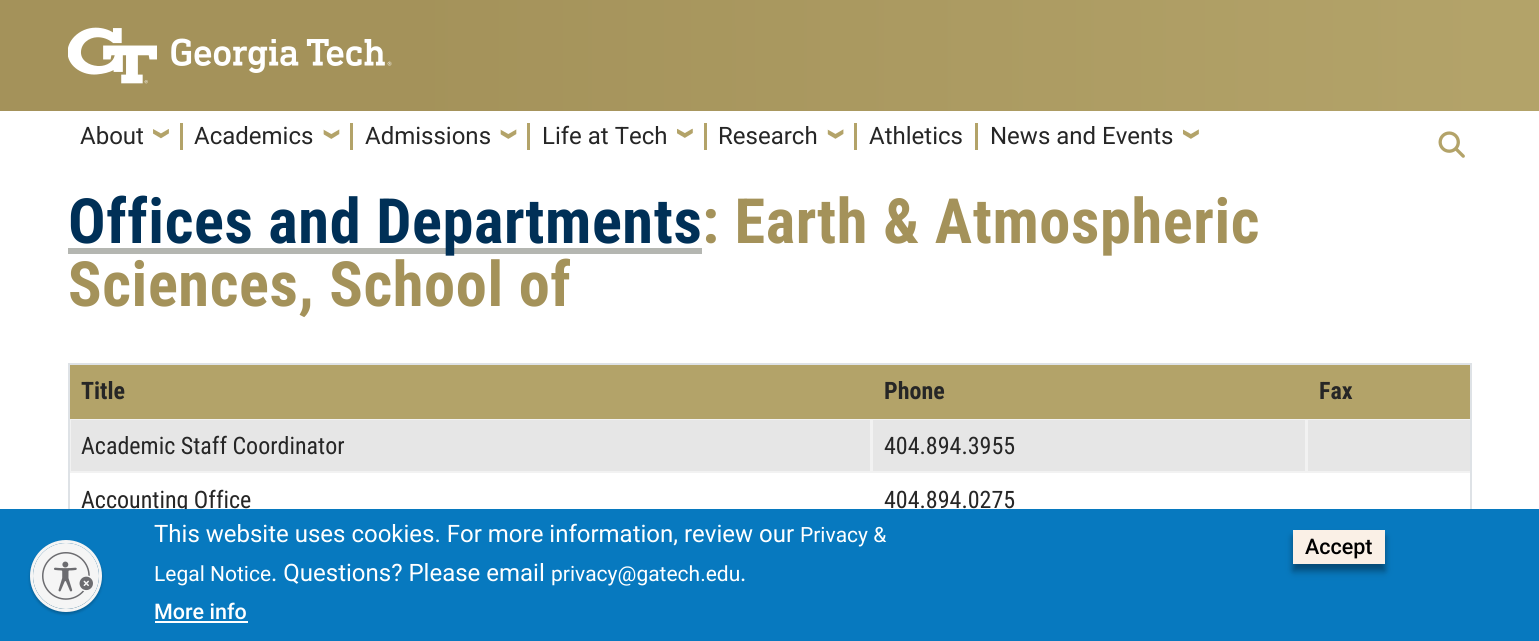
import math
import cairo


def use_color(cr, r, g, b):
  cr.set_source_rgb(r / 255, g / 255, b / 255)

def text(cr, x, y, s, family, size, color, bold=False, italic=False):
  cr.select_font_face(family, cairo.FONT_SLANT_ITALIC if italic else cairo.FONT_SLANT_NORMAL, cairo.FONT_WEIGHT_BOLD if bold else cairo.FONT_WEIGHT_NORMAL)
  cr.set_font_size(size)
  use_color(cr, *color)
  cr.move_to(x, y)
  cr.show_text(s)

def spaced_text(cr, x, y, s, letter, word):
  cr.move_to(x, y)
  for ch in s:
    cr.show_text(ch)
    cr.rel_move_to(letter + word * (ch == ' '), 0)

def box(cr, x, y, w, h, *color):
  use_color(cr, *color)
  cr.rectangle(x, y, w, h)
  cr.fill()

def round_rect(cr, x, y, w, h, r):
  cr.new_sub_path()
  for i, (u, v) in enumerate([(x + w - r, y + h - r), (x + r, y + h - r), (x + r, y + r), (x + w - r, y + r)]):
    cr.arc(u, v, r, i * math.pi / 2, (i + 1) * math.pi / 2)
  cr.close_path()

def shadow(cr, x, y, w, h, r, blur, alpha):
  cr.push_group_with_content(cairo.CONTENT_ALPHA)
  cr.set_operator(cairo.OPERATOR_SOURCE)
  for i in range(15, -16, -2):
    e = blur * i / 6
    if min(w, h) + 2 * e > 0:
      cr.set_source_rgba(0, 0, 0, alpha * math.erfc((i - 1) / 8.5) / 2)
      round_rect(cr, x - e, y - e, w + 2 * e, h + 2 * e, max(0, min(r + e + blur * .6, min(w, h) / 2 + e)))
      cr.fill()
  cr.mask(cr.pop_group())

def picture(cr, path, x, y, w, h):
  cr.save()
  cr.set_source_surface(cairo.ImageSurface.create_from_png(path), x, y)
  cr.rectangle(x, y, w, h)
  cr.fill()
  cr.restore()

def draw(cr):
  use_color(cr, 255, 255, 255)
  cr.paint()
  box(cr, 0, 0, 410, 111, 164, 146, 90)
  box(cr, 1490, 0, 49, 111, 179, 163, 105)
  picture(cr, "img_01.png", 68, 27, 324, 57)
  gradient = cairo.LinearGradient(410, 56, 1490, 55)
  gradient.add_color_stop_rgba(0, 0.643, 0.573, 0.353, 1)
  gradient.add_color_stop_rgba(1, 0.702, 0.639, 0.412, 1)
  cr.set_source(gradient)
  cr.rectangle(410, 0, 1080, 111)
  cr.fill()
  box(cr, 180, 123, 3, 27, 179, 163, 105)
  picture(cr, "img_02.png", 153, 129, 16, 10)
  box(cr, 350, 123, 3, 27, 179, 163, 105)
  picture(cr, "img_03.png", 323, 129, 17, 10)
  box(cr, 527, 123, 3, 27, 179, 163, 105)
  picture(cr, "img_04.png", 500, 129, 17, 10)
  box(cr, 704, 123, 3, 27, 179, 163, 105)
  picture(cr, "img_05.png", 677, 128, 16, 10)
  box(cr, 854, 123, 3, 27, 179, 163, 105)
  picture(cr, "img_06.png", 827, 129, 17, 10)
  box(cr, 975, 123, 3, 27, 179, 163, 105)
  picture(cr, "img_07.png", 1183, 129, 16, 10)
  picture(cr, "img_08.png", 1438, 131, 27, 27)
  box(cr, 68, 248, 634, 6, 180, 182, 177)
  box(cr, 68, 363, 1404, 2, 222, 226, 230)
  box(cr, 1470, 363, 2, 146, 222, 226, 230)
  box(cr, 68, 363, 2, 146, 222, 226, 230)
  box(cr, 70, 365, 1400, 54, 179, 163, 105)
  box(cr, 70, 419, 1400, 54, 242, 242, 242)
  box(cr, 71, 420, 799, 51, 230, 230, 230)
  box(cr, 873, 420, 432, 51, 230, 230, 230)
  box(cr, 1308, 420, 162, 51, 230, 230, 230)
  text(cr, 80, 144, "About", "Roboto", 24, (38, 38, 38))
  text(cr, 194, 144, "Academics", "Roboto", 24, (38, 38, 38))
  text(cr, 365, 144, "Admissions", "Roboto", 24, (38, 38, 38))
  text(cr, 542, 144, "Life at Tech", "Roboto", 24, (38, 38, 38))
  text(cr, 718, 144, "Research", "Roboto", 24, (38, 38, 38))
  text(cr, 869, 144, "Athletics", "Roboto", 24, (38, 38, 38))
  text(cr, 990, 144, "News and Events", "Roboto", 24, (38, 38, 38))
  cr.select_font_face("Roboto Condensed", cairo.FONT_SLANT_NORMAL, cairo.FONT_WEIGHT_BOLD)
  cr.set_font_size(62.4)
  use_color(cr, 0, 48, 87)
  spaced_text(cr, 68, 243, "Offices and Departments", 0.6, 0)
  use_color(cr, 164, 146, 90)
  spaced_text(cr, 702, 243, ": Earth & Atmospheric", 0.6, 0)
  spaced_text(cr, 68, 306, "Sciences, School of", 0.6, 0)
  text(cr, 81, 399, "Title", "Roboto Condensed", 24, (38, 38, 38), bold=True)
  text(cr, 884, 399, "Phone", "Roboto Condensed", 24, (38, 38, 38), bold=True)
  text(cr, 1319, 399, "Fax", "Roboto Condensed", 24, (38, 38, 38), bold=True)
  text(cr, 81, 454, "Academic Staff Coordinator", "Roboto Condensed", 24, (38, 38, 38))
  text(cr, 884, 454, "404.894.3955", "Roboto Condensed", 24, (38, 38, 38))
  text(cr, 81, 508, "Accounting Office", "Roboto Condensed", 24, (38, 38, 38))
  text(cr, 884, 508, "404.894.0275", "Roboto Condensed", 24, (38, 38, 38))
  box(cr, 0, 509, 1539, 132, 7, 121, 191)
  use_color(cr, 0, 0, 0)
  shadow(cr, 30, 542, 72, 72, 36, 1.5, 0.24)
  cr.arc(66, 576, 34.5, 0, 2 * math.pi)
  use_color(cr, 245, 245, 245)
  cr.set_line_width(3)
  cr.stroke()
  cr.save()
  round_rect(cr, 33, 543, 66, 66, 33)
  cr.clip()
  use_color(cr, 0, 0, 0)
  shadow(cr, 33, 545, 66, 66, 33, 1.5, 0.24)
  cr.restore()
  cr.arc(66, 576, 33, 0, 2 * math.pi)
  cr.fill()
  picture(cr, "img_09.png", 42, 552, 51, 48)
  text(cr, 154, 542, "This website uses cookies. For more information, review our", "Roboto", 24, (255, 255, 255))
  text(cr, 800, 542, "Privacy &", "Roboto", 21, (255, 255, 255))
  text(cr, 154, 581, "Legal Notice", "Roboto", 21, (255, 255, 255))
  text(cr, 271, 581, ". Questions? Please email", "Roboto", 24, (255, 255, 255))
  text(cr, 551, 581, "privacy@gatech.edu", "Roboto", 21, (255, 255, 255))
  text(cr, 740, 581, ".", "Roboto", 24, (255, 255, 255))
  text(cr, 154, 619, "More info", "Roboto Medium", 21.5, (255, 255, 255))
  box(cr, 155, 621, 93, 2, 255, 255, 255)
  use_color(cr, 0, 0, 0)
  shadow(cr, 1293, 537, 92, 35, 0, 4, 0.19)
  shadow(cr, 1293, 536, 92, 34, 0, 3, 0.24)
  box(cr, 1293, 530, 92, 34, 250, 240, 230)
  text(cr, 1305, 554, "Accept", "Roboto Medium", 21.5, (0, 0, 0))


surface = cairo.ImageSurface(cairo.FORMAT_RGB24, 1539, 641)
cr = cairo.Context(surface)
options = cairo.FontOptions()
options.set_hint_metrics(cairo.HINT_METRICS_OFF)
options.set_hint_style(cairo.HINT_STYLE_NONE)
cr.set_font_options(options)
cr.set_miter_limit(4)
draw(cr)
surface.write_to_png("out.png")
